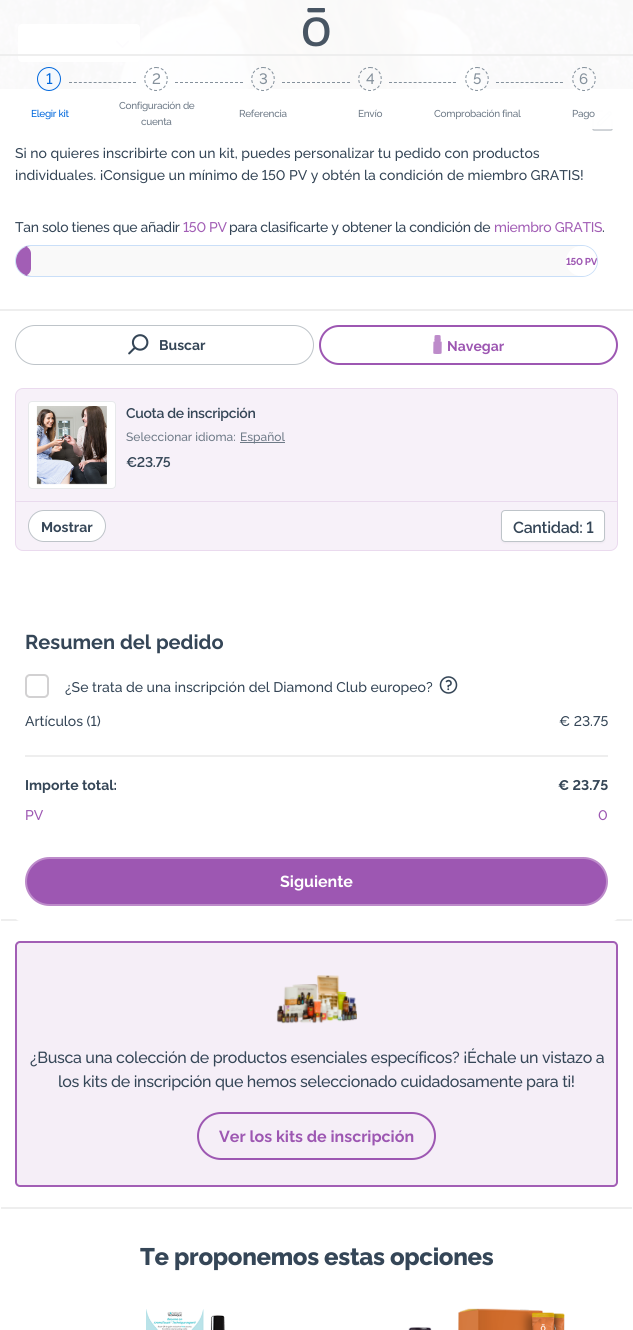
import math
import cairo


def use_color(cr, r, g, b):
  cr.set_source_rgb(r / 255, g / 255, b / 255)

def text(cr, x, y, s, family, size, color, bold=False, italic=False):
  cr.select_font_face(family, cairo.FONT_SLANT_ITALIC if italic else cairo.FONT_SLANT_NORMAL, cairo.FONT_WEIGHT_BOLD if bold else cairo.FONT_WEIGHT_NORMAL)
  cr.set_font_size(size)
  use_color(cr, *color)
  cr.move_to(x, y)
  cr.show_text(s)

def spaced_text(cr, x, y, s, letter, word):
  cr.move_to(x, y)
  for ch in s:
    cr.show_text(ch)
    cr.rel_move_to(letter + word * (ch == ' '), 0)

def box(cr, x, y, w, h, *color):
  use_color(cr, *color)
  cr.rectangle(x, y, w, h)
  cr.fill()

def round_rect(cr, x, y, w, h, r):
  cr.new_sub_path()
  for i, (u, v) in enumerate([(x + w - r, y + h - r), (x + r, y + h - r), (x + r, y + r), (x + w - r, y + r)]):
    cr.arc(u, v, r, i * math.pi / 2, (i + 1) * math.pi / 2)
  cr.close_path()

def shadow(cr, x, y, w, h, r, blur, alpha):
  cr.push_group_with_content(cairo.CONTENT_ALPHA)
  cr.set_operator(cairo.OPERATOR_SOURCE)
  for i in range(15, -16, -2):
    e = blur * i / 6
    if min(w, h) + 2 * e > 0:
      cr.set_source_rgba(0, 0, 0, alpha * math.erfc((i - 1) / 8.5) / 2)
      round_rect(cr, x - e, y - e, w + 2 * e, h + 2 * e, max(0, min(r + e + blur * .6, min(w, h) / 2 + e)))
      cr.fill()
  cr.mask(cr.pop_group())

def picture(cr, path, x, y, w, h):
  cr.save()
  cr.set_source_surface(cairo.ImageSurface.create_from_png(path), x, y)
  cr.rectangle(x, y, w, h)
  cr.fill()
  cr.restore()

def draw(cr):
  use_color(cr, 255, 255, 255)
  cr.paint()
  picture(cr, "img_02.png", 0, 0, 633, 89)
  use_color(cr, 255, 255, 255)
  round_rect(cr, 18, 24, 122, 38, 4)
  cr.fill()
  picture(cr, "img_03.png", 115, 40, 15, 8)
  picture(cr, "img_04.png", 592, 110, 21, 21)
  cr.set_source_rgba(1, 1, 1, 0.97)
  cr.rectangle(0, 0, 633, 129)
  cr.fill()
  picture(cr, "img_01.png", 302, 8, 28, 39)
  box(cr, 0, 54, 633, 2, 238, 238, 238)
  use_color(cr, 244, 248, 253)
  cr.arc(49, 79, 11.5, 0, 2 * math.pi)
  cr.fill_preserve()
  use_color(cr, 0, 103, 220)
  cr.set_line_width(1)
  cr.stroke()
  cr.new_path()
  cr.move_to(69, 82.5)
  cr.line_to(136, 82.5)
  use_color(cr, 132, 144, 155)
  cr.set_dash([3, 1.92])
  cr.stroke()
  cr.new_path()
  cr.move_to(156, 67.5)
  cr.curve_to(171, 67.5, 171, 90.5, 156, 90.5)
  cr.curve_to(141, 90.5, 141, 67.5, 156, 67.5)
  cr.close_path()
  cr.set_dash([3, 2])
  cr.stroke()
  cr.new_path()
  cr.move_to(175, 82.5)
  cr.line_to(243, 82.5)
  cr.stroke()
  cr.new_path()
  cr.move_to(263, 67.5)
  cr.curve_to(278, 67.5, 278, 90.5, 263, 90.5)
  cr.curve_to(248, 90.5, 248, 67.5, 263, 67.5)
  cr.close_path()
  cr.stroke()
  cr.new_path()
  cr.move_to(282, 82.5)
  cr.line_to(350, 82.5)
  cr.stroke()
  cr.new_path()
  cr.move_to(370, 67.5)
  cr.curve_to(385, 67.5, 385, 90.5, 370, 90.5)
  cr.curve_to(355, 90.5, 355, 67.5, 370, 67.5)
  cr.close_path()
  cr.stroke()
  cr.new_path()
  cr.move_to(389, 82.5)
  cr.line_to(456, 82.5)
  cr.set_dash([3, 1.92])
  cr.stroke()
  cr.new_path()
  cr.move_to(477, 67.5)
  cr.curve_to(492, 67.5, 492, 90.5, 477, 90.5)
  cr.curve_to(462, 90.5, 462, 67.5, 477, 67.5)
  cr.close_path()
  cr.set_dash([3, 2])
  cr.stroke()
  cr.new_path()
  cr.move_to(496, 82.5)
  cr.line_to(563, 82.5)
  cr.set_dash([3, 1.92])
  cr.stroke()
  cr.new_path()
  cr.move_to(584, 67.5)
  cr.curve_to(599, 67.5, 599, 90.5, 584, 90.5)
  cr.curve_to(569, 90.5, 569, 67.5, 584, 67.5)
  cr.close_path()
  cr.set_dash([3, 2])
  cr.stroke()
  box(cr, 0, 309, 633, 2, 238, 238, 238)
  use_color(cr, 249, 249, 249)
  round_rect(cr, 15.5, 245.5, 582, 31, 15.5)
  cr.fill_preserve()
  use_color(cr, 202, 223, 248)
  cr.set_dash([])
  cr.stroke()
  use_color(cr, 162, 94, 181)
  cr.new_path()
  cr.move_to(31, 246)
  cr.line_to(23.5, 246)
  cr.curve_to(27.5, 246, 31, 249.5, 31, 253.5)
  cr.line_to(31, 268.5)
  cr.curve_to(31, 272.5, 27.5, 276, 23.5, 276)
  cr.line_to(31, 276)
  cr.curve_to(22.5, 276, 16, 269.5, 16, 261)
  cr.curve_to(16, 252.5, 22.5, 246, 31, 246)
  cr.close_path()
  cr.fill()
  use_color(cr, 255, 255, 255)
  round_rect(cr, 566, 246, 31, 30, 15)
  cr.fill()
  round_rect(cr, 15.5, 325.5, 298, 39, 19.5)
  use_color(cr, 190, 196, 201)
  cr.stroke()
  picture(cr, "img_05.png", 128, 334, 21, 21)
  round_rect(cr, 320, 326, 297, 38, 19)
  use_color(cr, 157, 87, 178)
  cr.set_line_width(2)
  cr.stroke()
  picture(cr, "img_06.png", 433, 335, 9, 19)
  use_color(cr, 247, 241, 249)
  round_rect(cr, 15.5, 388.5, 602, 162, 7.5)
  cr.fill_preserve()
  use_color(cr, 234, 218, 238)
  cr.set_line_width(1)
  cr.stroke()
  use_color(cr, 255, 255, 255)
  round_rect(cr, 28.5, 401.5, 87, 87, 3.5)
  cr.fill_preserve()
  use_color(cr, 231, 233, 235)
  cr.stroke()
  picture(cr, "img_07.png", 36, 406, 71, 79)
  box(cr, 240, 442, 45, 1, 110, 122, 135)
  box(cr, 16, 501, 601, 1, 234, 218, 238)
  use_color(cr, 255, 255, 255)
  round_rect(cr, 28.5, 510.5, 77, 31, 15.5)
  cr.fill_preserve()
  use_color(cr, 190, 196, 201)
  cr.stroke()
  use_color(cr, 16, 24, 40)
  shadow(cr, 501, 511, 104, 32, 4, 1, 0.05)
  use_color(cr, 255, 255, 255)
  round_rect(cr, 501.5, 510.5, 103, 31, 3.5)
  cr.fill_preserve()
  use_color(cr, 190, 196, 201)
  cr.stroke()
  box(cr, 1, 919, 631, 2, 238, 238, 238)
  use_color(cr, 255, 255, 255)
  round_rect(cr, 15, 611, 603, 310, 5)
  cr.fill()
  round_rect(cr, 26, 675, 22, 22, 4)
  use_color(cr, 210, 209, 210)
  cr.set_line_width(2)
  cr.stroke()
  picture(cr, "img_08.png", 439, 676, 19, 18)
  box(cr, 25, 755, 583, 2, 238, 238, 238)
  use_color(cr, 157, 87, 178)
  round_rect(cr, 26, 858, 581, 47, 23.5)
  cr.fill_preserve()
  use_color(cr, 189, 139, 202)
  cr.stroke()
  use_color(cr, 245, 238, 247)
  round_rect(cr, 16, 942, 601, 244, 4)
  cr.fill_preserve()
  use_color(cr, 162, 94, 181)
  cr.stroke()
  picture(cr, "img_09.png", 276, 975, 81, 49)
  round_rect(cr, 198, 1113, 237, 46, 23)
  use_color(cr, 157, 87, 178)
  cr.stroke()
  box(cr, 1, 1207, 631, 2, 238, 238, 238)
  picture(cr, "img_10.png", 146, 1309, 79, 21)
  picture(cr, "img_11.png", 408, 1308, 157, 22)
  cr.select_font_face("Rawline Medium")
  cr.set_font_size(15)
  use_color(cr, 0, 103, 220)
  spaced_text(cr, 46, 84, "1", -0.3, 0)
  cr.set_font_size(10)
  spaced_text(cr, 31, 117, "Elegir kit", -0.3, 0)
  cr.set_font_size(15)
  use_color(cr, 132, 144, 155)
  spaced_text(cr, 152, 84, "2", -0.3, 0)
  cr.set_font_size(10)
  use_color(cr, 110, 122, 135)
  spaced_text(cr, 119, 109, "Configuración de", -0.3, 0)
  spaced_text(cr, 141, 125, "cuenta", -0.3, 0)
  cr.set_font_size(15)
  use_color(cr, 132, 144, 155)
  spaced_text(cr, 259, 84, "3", -0.3, 0)
  cr.set_font_size(10)
  use_color(cr, 110, 122, 135)
  spaced_text(cr, 239, 117, "Referencia", -0.3, 0)
  cr.set_font_size(15)
  use_color(cr, 132, 144, 155)
  spaced_text(cr, 366, 84, "4", -0.3, 0)
  cr.set_font_size(10)
  use_color(cr, 110, 122, 135)
  spaced_text(cr, 358, 117, "Envío", -0.3, 0)
  cr.set_font_size(15)
  use_color(cr, 132, 144, 155)
  spaced_text(cr, 473, 84, "5", -0.3, 0)
  cr.set_font_size(10)
  use_color(cr, 110, 122, 135)
  spaced_text(cr, 434, 117, "Comprobación final", -0.3, 0)
  cr.set_font_size(15)
  use_color(cr, 132, 144, 155)
  spaced_text(cr, 579, 84, "6", -0.3, 0)
  cr.set_font_size(10)
  use_color(cr, 110, 122, 135)
  spaced_text(cr, 572, 117, "Pago", -0.3, 0)
  text(cr, 15, 158, "Si no quieres inscribirte con un kit, puedes personalizar tu pedido con productos", "Rawline Medium", 14, (53, 70, 87))
  text(cr, 15, 180, "individuales. ¡Consigue un mínimo de 150 PV y obtén la condición de miembro GRATIS!", "Rawline Medium", 14, (53, 70, 87))
  spaced_text(cr, 15, 232, "Tan solo tienes que añadir", -0.3, 0)
  use_color(cr, 162, 94, 181)
  spaced_text(cr, 183, 232, "150 PV", -0.3, 0)
  use_color(cr, 53, 70, 87)
  spaced_text(cr, 229, 232, "para clasificarte y obtener la condición de", -0.3, 0)
  use_color(cr, 162, 94, 181)
  spaced_text(cr, 494, 232, "miembro GRATIS", -0.3, 0)
  use_color(cr, 53, 70, 87)
  spaced_text(cr, 602, 232, ".", -0.3, 0)
  cr.save()
  round_rect(cr, 16, 246, 581, 30, 15)
  cr.clip()
  cr.select_font_face("Rawline", cairo.FONT_SLANT_NORMAL, cairo.FONT_WEIGHT_BOLD)
  cr.set_font_size(10)
  use_color(cr, 157, 87, 178)
  spaced_text(cr, 566, 265, "150 PV", -0.3, 0)
  cr.restore()
  text(cr, 159, 350, "Buscar", "Rawline", 14, (53, 70, 87), bold=True)
  text(cr, 447, 351, "Navegar", "Rawline", 14, (157, 87, 178), bold=True)
  cr.select_font_face("Rawline SemiBold")
  use_color(cr, 53, 70, 87)
  spaced_text(cr, 126, 418, "Cuota de inscripción", -0.3, 0)
  text(cr, 126, 441, "Seleccionar idioma:", "Rawline Medium", 12, (110, 122, 135))
  text(cr, 240, 441, "Español", "Rawline Medium", 12, (110, 122, 135))
  cr.select_font_face("Rawline SemiBold")
  cr.set_font_size(14)
  use_color(cr, 53, 70, 87)
  spaced_text(cr, 126, 467, "€23.75", -0.3, 0)
  text(cr, 41, 532, "Mostrar", "Rawline", 14, (53, 70, 87), bold=True)
  cr.select_font_face("Rawline SemiBold")
  cr.set_font_size(16)
  spaced_text(cr, 513, 533, "Cantidad: 1", -0.3, 0)
  text(cr, 25, 649, "Resumen del pedido", "Rawline", 20, (53, 70, 87), bold=True)
  text(cr, 65, 692, "¿Se trata de una inscripción del Diamond Club europeo?", "Rawline Medium", 14, (53, 70, 87))
  text(cr, 25, 726, "Artículos (1)", "Rawline Medium", 14, (53, 70, 87))
  text(cr, 559, 726, "€ 23.75", "Rawline Medium", 14, (53, 70, 87))
  text(cr, 25, 790, "Importe total:", "Rawline", 14, (53, 70, 87), bold=True)
  text(cr, 558, 790, "€ 23.75", "Rawline", 14, (53, 70, 87), bold=True)
  text(cr, 25, 820, "PV", "Rawline Medium", 14, (157, 87, 178))
  text(cr, 598, 820, "0", "Rawline Medium", 14, (157, 87, 178))
  text(cr, 280, 887, "Siguiente", "Rawline", 16, (255, 255, 255), bold=True)
  cr.select_font_face("Rawline Medium")
  use_color(cr, 53, 70, 87)
  spaced_text(cr, 30, 1063, "¿Busca una colección de productos esenciales específicos? ¡Échale un vistazo a", -0.3, 0)
  spaced_text(cr, 58, 1087, "los kits de inscripción que hemos seleccionado cuidadosamente para ti!", -0.3, 0)
  text(cr, 219, 1142, "Ver los kits de inscripción", "Rawline", 16, (157, 87, 178), bold=True)
  cr.select_font_face("Rawline ExtraBold")
  cr.set_font_size(24)
  use_color(cr, 53, 70, 87)
  spaced_text(cr, 140, 1265, "Te proponemos estas opciones", -0.3, 0)


surface = cairo.ImageSurface(cairo.FORMAT_RGB24, 633, 1330)
cr = cairo.Context(surface)
options = cairo.FontOptions()
options.set_hint_metrics(cairo.HINT_METRICS_OFF)
options.set_hint_style(cairo.HINT_STYLE_NONE)
cr.set_font_options(options)
cr.set_miter_limit(4)
draw(cr)
surface.write_to_png("out.png")
